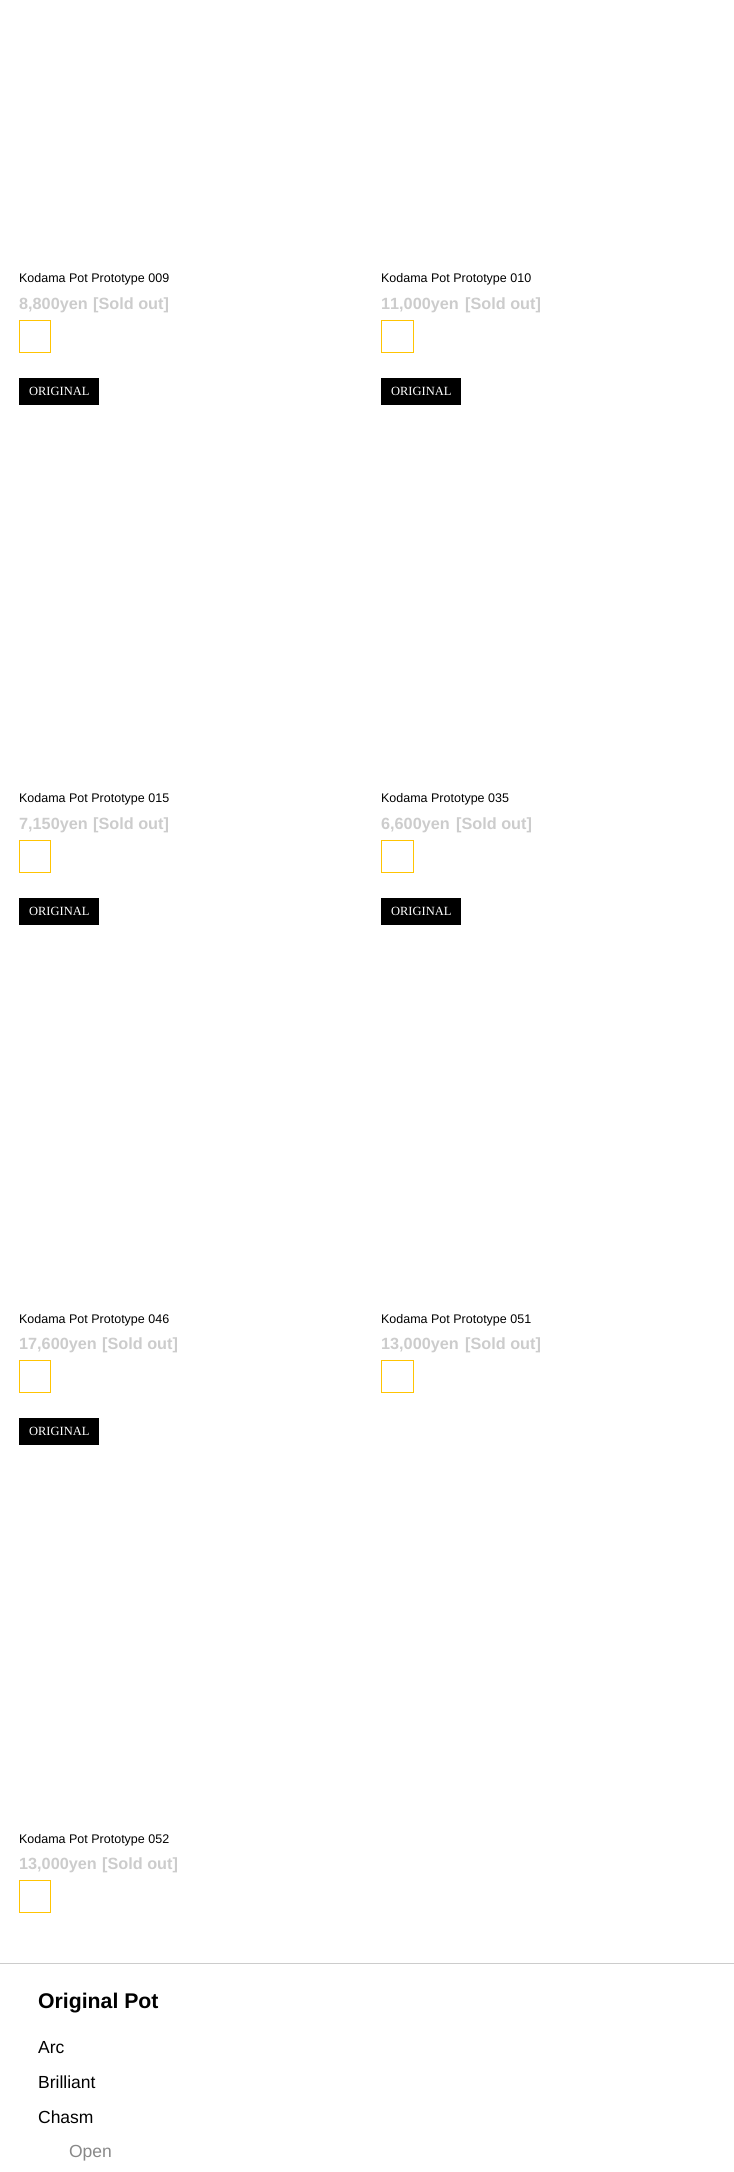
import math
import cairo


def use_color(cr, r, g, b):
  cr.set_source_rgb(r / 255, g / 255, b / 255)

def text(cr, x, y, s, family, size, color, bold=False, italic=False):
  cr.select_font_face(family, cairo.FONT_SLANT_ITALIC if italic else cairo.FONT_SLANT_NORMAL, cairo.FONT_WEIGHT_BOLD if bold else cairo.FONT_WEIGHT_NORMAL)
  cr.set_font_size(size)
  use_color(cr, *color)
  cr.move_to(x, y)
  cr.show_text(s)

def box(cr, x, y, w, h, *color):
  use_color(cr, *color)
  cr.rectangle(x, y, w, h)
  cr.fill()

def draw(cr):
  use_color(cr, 255, 255, 255)
  cr.paint()
  cr.rectangle(19.5, 320.5, 31, 32)
  use_color(cr, 255, 196, 3)
  cr.set_line_width(1)
  cr.stroke()
  cr.rectangle(381.5, 320.5, 32, 32)
  cr.stroke()
  box(cr, 19, 378, 80, 27, 0, 0, 0)
  cr.rectangle(19.5, 840.5, 31, 32)
  use_color(cr, 255, 196, 3)
  cr.stroke()
  box(cr, 381, 378, 80, 27, 0, 0, 0)
  cr.rectangle(381.5, 840.5, 32, 32)
  use_color(cr, 255, 196, 3)
  cr.stroke()
  box(cr, 19, 898, 80, 27, 0, 0, 0)
  cr.rectangle(19.5, 1360.5, 31, 32)
  use_color(cr, 255, 196, 3)
  cr.stroke()
  box(cr, 381, 898, 80, 27, 0, 0, 0)
  cr.rectangle(381.5, 1360.5, 32, 32)
  use_color(cr, 255, 196, 3)
  cr.stroke()
  box(cr, 19, 1418, 80, 27, 0, 0, 0)
  cr.rectangle(19.5, 1880.5, 31, 32)
  use_color(cr, 255, 196, 3)
  cr.stroke()
  box(cr, 0, 1963, 734, 1, 204, 204, 204)
  text(cr, 19, 282, "Kodama Pot Prototype 009", "Liberation Sans", 12.5, (0, 0, 0))
  text(cr, 19, 309, "8,800yen", "Liberation Sans", 16.25, (204, 204, 204), bold=True)
  text(cr, 93, 309, "[Sold out]", "Liberation Sans", 16.25, (204, 204, 204), bold=True)
  text(cr, 381, 282, "Kodama Pot Prototype 010", "Liberation Sans", 12.5, (0, 0, 0))
  text(cr, 381, 309, "11,000yen", "Liberation Sans", 16.25, (204, 204, 204), bold=True)
  text(cr, 465, 309, "[Sold out]", "Liberation Sans", 16.25, (204, 204, 204), bold=True)
  text(cr, 29, 395, "ORIGINAL", "Liberation Serif", 12.5, (255, 255, 255))
  text(cr, 19, 802, "Kodama Pot Prototype 015", "Liberation Sans", 12.5, (0, 0, 0))
  text(cr, 19, 829, "7,150yen", "Liberation Sans", 16.25, (204, 204, 204), bold=True)
  text(cr, 93, 829, "[Sold out]", "Liberation Sans", 16.25, (204, 204, 204), bold=True)
  text(cr, 391, 395, "ORIGINAL", "Liberation Serif", 12.5, (255, 255, 255))
  text(cr, 381, 802, "Kodama Prototype 035", "Liberation Sans", 12.5, (0, 0, 0))
  text(cr, 381, 829, "6,600yen", "Liberation Sans", 16.25, (204, 204, 204), bold=True)
  text(cr, 456, 829, "[Sold out]", "Liberation Sans", 16.25, (204, 204, 204), bold=True)
  text(cr, 29, 915, "ORIGINAL", "Liberation Serif", 12.5, (255, 255, 255))
  text(cr, 19, 1323, "Kodama Pot Prototype 046", "Liberation Sans", 12.5, (0, 0, 0))
  text(cr, 19, 1349, "17,600yen", "Liberation Sans", 16.25, (204, 204, 204), bold=True)
  text(cr, 102, 1349, "[Sold out]", "Liberation Sans", 16.25, (204, 204, 204), bold=True)
  text(cr, 391, 915, "ORIGINAL", "Liberation Serif", 12.5, (255, 255, 255))
  text(cr, 381, 1323, "Kodama Pot Prototype 051", "Liberation Sans", 12.5, (0, 0, 0))
  text(cr, 381, 1349, "13,000yen", "Liberation Sans", 16.25, (204, 204, 204), bold=True)
  text(cr, 465, 1349, "[Sold out]", "Liberation Sans", 16.25, (204, 204, 204), bold=True)
  text(cr, 29, 1435, "ORIGINAL", "Liberation Serif", 12.5, (255, 255, 255))
  text(cr, 19, 1843, "Kodama Pot Prototype 052", "Liberation Sans", 12.5, (0, 0, 0))
  text(cr, 19, 1869, "13,000yen", "Liberation Sans", 16.25, (204, 204, 204), bold=True)
  text(cr, 102, 1869, "[Sold out]", "Liberation Sans", 16.25, (204, 204, 204), bold=True)
  text(cr, 38, 2008, "Original Pot", "Liberation Sans", 21.25, (0, 0, 0), bold=True)
  text(cr, 38, 2053, "Arc", "Liberation Sans", 17.5, (0, 0, 0))
  text(cr, 38, 2088, "Brilliant", "Liberation Sans", 17.5, (0, 0, 0))
  text(cr, 38, 2123, "Chasm", "Liberation Sans", 17.5, (0, 0, 0))
  text(cr, 69, 2157, "Open", "Liberation Sans", 17.5, (136, 136, 136))


surface = cairo.ImageSurface(cairo.FORMAT_RGB24, 734, 2172)
cr = cairo.Context(surface)
options = cairo.FontOptions()
options.set_hint_metrics(cairo.HINT_METRICS_OFF)
options.set_hint_style(cairo.HINT_STYLE_NONE)
cr.set_font_options(options)
cr.set_miter_limit(4)
draw(cr)
surface.write_to_png("out.png")
